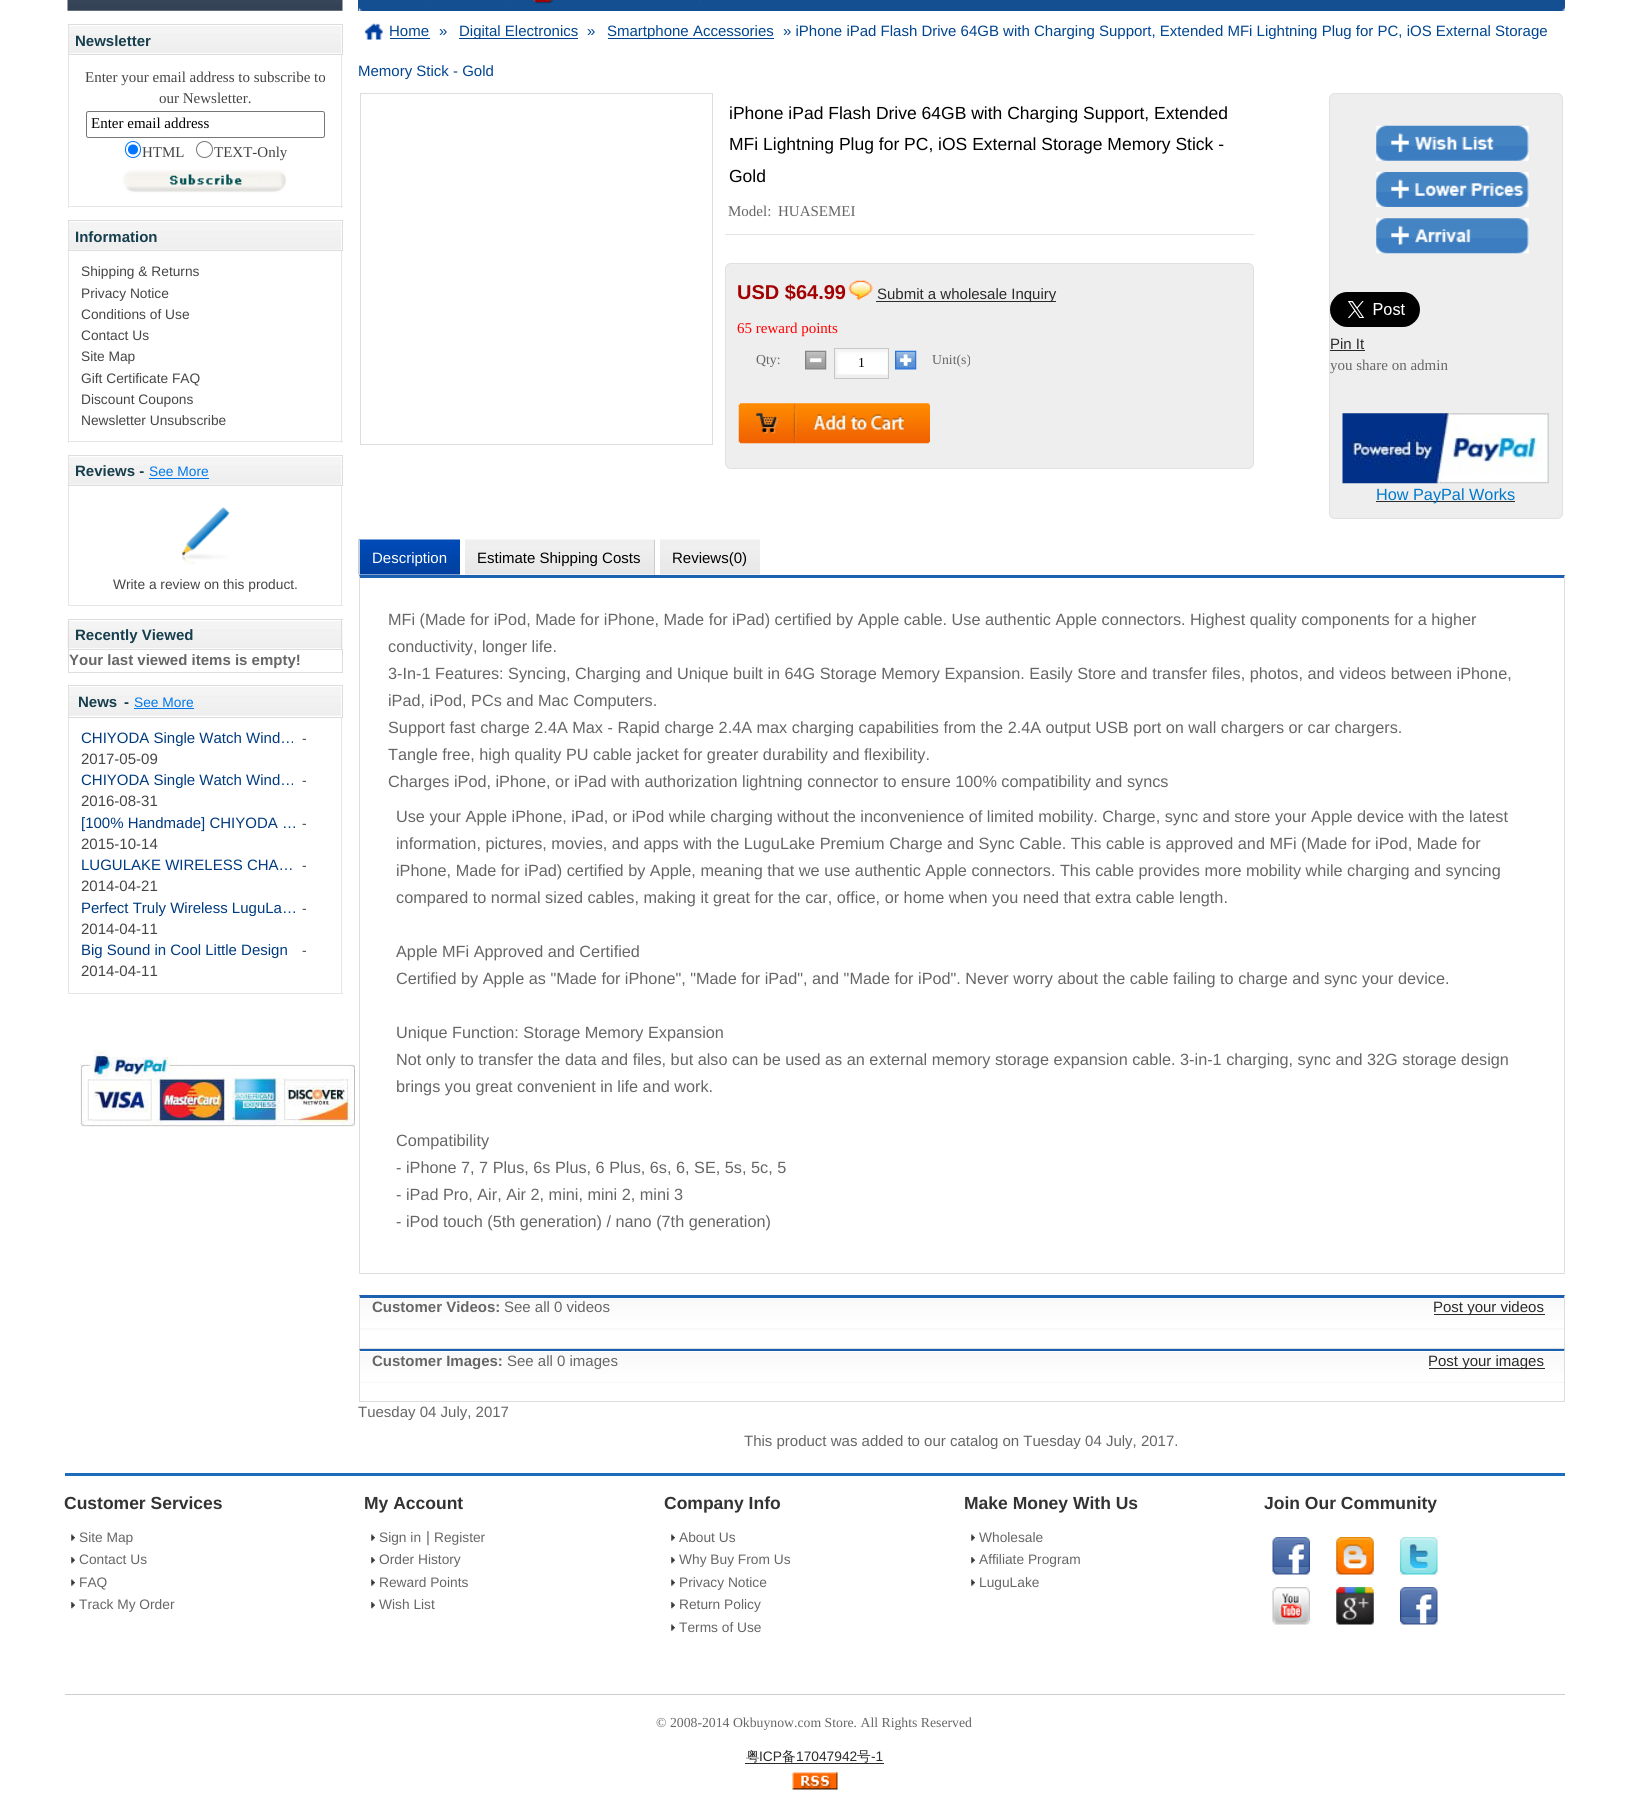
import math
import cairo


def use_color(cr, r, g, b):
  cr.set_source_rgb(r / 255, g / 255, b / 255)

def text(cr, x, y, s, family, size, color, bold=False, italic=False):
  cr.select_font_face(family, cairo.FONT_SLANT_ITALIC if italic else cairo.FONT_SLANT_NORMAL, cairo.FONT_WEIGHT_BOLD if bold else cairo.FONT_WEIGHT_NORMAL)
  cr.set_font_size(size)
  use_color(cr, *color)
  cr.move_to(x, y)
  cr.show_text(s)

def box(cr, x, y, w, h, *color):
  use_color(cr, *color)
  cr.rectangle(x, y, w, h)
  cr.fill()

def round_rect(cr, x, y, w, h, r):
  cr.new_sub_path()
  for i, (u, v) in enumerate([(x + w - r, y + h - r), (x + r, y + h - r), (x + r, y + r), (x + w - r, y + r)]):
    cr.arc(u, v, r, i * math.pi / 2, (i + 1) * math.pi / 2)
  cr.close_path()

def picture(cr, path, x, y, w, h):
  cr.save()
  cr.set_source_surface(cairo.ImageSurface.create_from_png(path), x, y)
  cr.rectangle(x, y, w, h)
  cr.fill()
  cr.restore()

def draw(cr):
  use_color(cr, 255, 255, 255)
  cr.paint()
  picture(cr, "img_01.png", 67, 0, 276, 11)
  cr.rectangle(68.5, 24.5, 274, 30)
  use_color(cr, 221, 221, 221)
  cr.set_line_width(1)
  cr.stroke()
  picture(cr, "img_02.png", 68, 26, 274, 28)
  box(cr, 341, 55, 1, 153, 230, 230, 230)
  box(cr, 68, 206, 275, 1, 230, 230, 230)
  box(cr, 68, 55, 1, 153, 230, 230, 230)
  round_rect(cr, 86.5, 111.5, 238, 26, 2)
  use_color(cr, 118, 118, 118)
  cr.stroke()
  round_rect(cr, 125.5, 141.5, 15, 16, 7.5)
  use_color(cr, 0, 117, 255)
  cr.stroke()
  cr.arc(133, 149.5, 5, 0, 2 * math.pi)
  cr.fill()
  cr.arc(204.5, 149.5, 8, 0, 2 * math.pi)
  use_color(cr, 118, 118, 118)
  cr.stroke()
  picture(cr, "img_03.png", 122, 170, 165, 23)
  cr.rectangle(68.5, 220.5, 274, 30)
  use_color(cr, 221, 221, 221)
  cr.stroke()
  picture(cr, "img_04.png", 68, 222, 274, 28)
  box(cr, 341, 251, 1, 192, 230, 230, 230)
  box(cr, 68, 441, 275, 1, 230, 230, 230)
  box(cr, 68, 251, 1, 192, 230, 230, 230)
  cr.rectangle(68.5, 455.5, 274, 30)
  use_color(cr, 221, 221, 221)
  cr.stroke()
  picture(cr, "img_04.png", 68, 457, 274, 28)
  box(cr, 149, 478, 60, 1, 0, 120, 232)
  box(cr, 341, 486, 1, 120, 230, 230, 230)
  box(cr, 68, 605, 275, 1, 230, 230, 230)
  box(cr, 68, 486, 1, 120, 230, 230, 230)
  picture(cr, "img_05.png", 182, 507, 48, 58)
  picture(cr, "img_06.png", 67, 621, 276, 28)
  box(cr, 68, 619, 275, 1, 221, 221, 221)
  box(cr, 341, 619, 1, 30, 221, 221, 221)
  box(cr, 68, 619, 1, 30, 221, 221, 221)
  cr.rectangle(68.5, 649.5, 274, 23)
  cr.stroke()
  cr.rectangle(68.5, 685.5, 274, 32)
  cr.stroke()
  picture(cr, "img_07.png", 68, 687, 274, 29)
  box(cr, 134, 708, 60, 1, 0, 120, 232)
  box(cr, 341, 718, 1, 276, 230, 230, 230)
  box(cr, 68, 993, 275, 1, 230, 230, 230)
  box(cr, 68, 718, 1, 276, 230, 230, 230)
  picture(cr, "img_08.png", 80, 1050, 275, 77)
  box(cr, 358, 0, 1207, 11, 20, 79, 145)
  picture(cr, "img_09.png", 426, 0, 2, 1)
  picture(cr, "img_10.png", 510, 0, 1, 2)
  picture(cr, "img_11.png", 533, 0, 20, 5)
  picture(cr, "img_12.png", 699, 0, 1, 3)
  picture(cr, "img_13.png", 358, 7, 5, 4)
  picture(cr, "img_14.png", 1561, 7, 4, 4)
  picture(cr, "img_15.png", 364, 23, 19, 17)
  box(cr, 390, 38, 40, 1, 1, 69, 144)
  box(cr, 459, 38, 119, 1, 1, 69, 144)
  box(cr, 608, 38, 166, 1, 1, 69, 144)
  cr.rectangle(360.5, 93.5, 352, 351)
  use_color(cr, 221, 221, 221)
  cr.stroke()
  box(cr, 725, 234, 529, 1, 228, 228, 228)
  use_color(cr, 238, 238, 238)
  round_rect(cr, 725.5, 263.5, 528, 205, 5.5)
  cr.fill_preserve()
  use_color(cr, 224, 224, 224)
  cr.stroke()
  picture(cr, "img_16.png", 848, 280, 25, 20)
  box(cr, 876, 301, 180, 1, 43, 43, 43)
  picture(cr, "img_17.png", 805, 350, 22, 20)
  picture(cr, "img_18.png", 836, 349, 52, 26)
  cr.rectangle(834.5, 348.5, 54, 30)
  use_color(cr, 200, 199, 199)
  cr.stroke()
  picture(cr, "img_19.png", 895, 350, 22, 20)
  picture(cr, "img_20.png", 738, 403, 192, 41)
  use_color(cr, 238, 238, 238)
  round_rect(cr, 1329.5, 93.5, 233, 425, 5.5)
  cr.fill_preserve()
  use_color(cr, 224, 224, 224)
  cr.stroke()
  picture(cr, "img_21.png", 1376, 125, 153, 36)
  picture(cr, "img_22.png", 1376, 172, 153, 35)
  picture(cr, "img_23.png", 1376, 218, 153, 36)
  picture(cr, "img_24.png", 1330, 292, 90, 35)
  box(cr, 1330, 350, 35, 1, 43, 43, 43)
  picture(cr, "img_25.png", 1342, 413, 207, 71)
  box(cr, 1376, 501, 139, 1, 43, 43, 43)
  picture(cr, "img_26.png", 358, 539, 102, 36)
  box(cr, 359, 540, 1, 35, 204, 204, 204)
  picture(cr, "img_27.png", 465, 539, 190, 36)
  box(cr, 654, 540, 1, 35, 204, 204, 204)
  picture(cr, "img_28.png", 660, 539, 100, 36)
  use_color(cr, 27, 97, 175)
  cr.new_path()
  cr.move_to(359, 575)
  cr.line_to(1565, 575)
  cr.line_to(1564, 578)
  cr.line_to(360, 578)
  cr.close_path()
  cr.fill()
  use_color(cr, 221, 221, 221)
  cr.new_path()
  cr.move_to(1565, 575)
  cr.line_to(1565, 1274)
  cr.line_to(1564, 1272)
  cr.line_to(1564, 578)
  cr.close_path()
  cr.fill()
  box(cr, 359, 1273, 1206, 1, 221, 221, 221)
  cr.new_path()
  cr.move_to(359, 1274)
  cr.line_to(359, 575)
  cr.line_to(360, 578)
  cr.line_to(360, 1272)
  cr.close_path()
  cr.fill()
  picture(cr, "img_29.png", 360, 1298, 1204, 32)
  use_color(cr, 27, 97, 175)
  cr.new_path()
  cr.move_to(359, 1295)
  cr.line_to(1565, 1295)
  cr.line_to(1564, 1298)
  cr.line_to(360, 1298)
  cr.close_path()
  cr.fill()
  use_color(cr, 221, 221, 221)
  cr.new_path()
  cr.move_to(1565, 1295)
  cr.line_to(1565, 1349)
  cr.line_to(1564, 1348)
  cr.line_to(1564, 1298)
  cr.close_path()
  cr.fill()
  box(cr, 359, 1348, 1206, 1, 221, 221, 221)
  cr.new_path()
  cr.move_to(359, 1349)
  cr.line_to(359, 1295)
  cr.line_to(360, 1298)
  cr.line_to(360, 1348)
  cr.close_path()
  cr.fill()
  box(cr, 1434, 1314, 111, 1, 43, 43, 43)
  picture(cr, "img_30.png", 360, 1352, 1204, 31)
  use_color(cr, 27, 97, 175)
  cr.new_path()
  cr.move_to(359, 1349)
  cr.line_to(1565, 1349)
  cr.line_to(1564, 1351)
  cr.line_to(360, 1351)
  cr.close_path()
  cr.fill()
  use_color(cr, 221, 221, 221)
  cr.new_path()
  cr.move_to(1565, 1349)
  cr.line_to(1565, 1402)
  cr.line_to(1564, 1401)
  cr.line_to(1564, 1351)
  cr.close_path()
  cr.fill()
  box(cr, 359, 1401, 1206, 1, 221, 221, 221)
  cr.new_path()
  cr.move_to(359, 1402)
  cr.line_to(359, 1349)
  cr.line_to(360, 1351)
  cr.line_to(360, 1401)
  cr.close_path()
  cr.fill()
  box(cr, 1429, 1368, 116, 1, 43, 43, 43)
  box(cr, 65, 1473, 1500, 3, 28, 108, 190)
  picture(cr, "img_31.png", 71, 1534, 4, 7)
  picture(cr, "img_32.png", 71, 1557, 4, 7)
  picture(cr, "img_31.png", 71, 1579, 4, 7)
  picture(cr, "img_32.png", 71, 1602, 4, 7)
  picture(cr, "img_31.png", 371, 1534, 4, 7)
  picture(cr, "img_32.png", 371, 1557, 4, 7)
  picture(cr, "img_31.png", 371, 1579, 4, 7)
  picture(cr, "img_32.png", 371, 1602, 4, 7)
  picture(cr, "img_31.png", 671, 1534, 4, 7)
  picture(cr, "img_32.png", 671, 1557, 4, 7)
  picture(cr, "img_31.png", 671, 1579, 4, 7)
  picture(cr, "img_32.png", 671, 1602, 4, 7)
  picture(cr, "img_31.png", 671, 1624, 4, 7)
  picture(cr, "img_31.png", 971, 1534, 4, 7)
  picture(cr, "img_32.png", 971, 1557, 4, 7)
  picture(cr, "img_31.png", 971, 1579, 4, 7)
  picture(cr, "img_33.png", 1272, 1537, 38, 38)
  picture(cr, "img_34.png", 1336, 1537, 38, 38)
  picture(cr, "img_35.png", 1400, 1537, 38, 38)
  picture(cr, "img_36.png", 1272, 1587, 38, 38)
  picture(cr, "img_37.png", 1336, 1587, 38, 38)
  picture(cr, "img_38.png", 1400, 1587, 38, 38)
  box(cr, 65, 1694, 1500, 1, 206, 206, 206)
  box(cr, 745, 1763, 139, 1, 43, 43, 43)
  picture(cr, "img_39.png", 792, 1772, 46, 18)
  text(cr, 75, 46, "Newsletter", "Liberation Sans", 15, (22, 62, 77), bold=True)
  text(cr, 85, 82, "Enter your email address to subscribe to", "Liberation Serif", 15, (69, 69, 69))
  text(cr, 159, 103, "our Newsletter.", "Liberation Serif", 15, (69, 69, 69))
  text(cr, 91, 128, "Enter email address", "Liberation Serif", 15, (0, 0, 0))
  text(cr, 142, 157, "HTML", "Liberation Serif", 15, (69, 69, 69))
  text(cr, 214, 157, "TEXT-Only", "Liberation Serif", 15, (69, 69, 69))
  text(cr, 75, 242, "Information", "Liberation Sans", 15, (22, 62, 77), bold=True)
  text(cr, 81, 276, "Shipping & Returns", "Liberation Sans", 13.75, (69, 69, 69))
  text(cr, 81, 298, "Privacy Notice", "Liberation Sans", 13.75, (69, 69, 69))
  text(cr, 81, 319, "Conditions of Use", "Liberation Sans", 13.75, (69, 69, 69))
  text(cr, 81, 340, "Contact Us", "Liberation Sans", 13.75, (69, 69, 69))
  text(cr, 81, 361, "Site Map", "Liberation Sans", 13.75, (69, 69, 69))
  text(cr, 81, 383, "Gift Certificate FAQ", "Liberation Sans", 13.75, (69, 69, 69))
  text(cr, 81, 404, "Discount Coupons", "Liberation Sans", 13.75, (69, 69, 69))
  text(cr, 81, 425, "Newsletter Unsubscribe", "Liberation Sans", 13.75, (69, 69, 69))
  text(cr, 75, 476, "Reviews -", "Liberation Sans", 15, (22, 62, 77), bold=True)
  text(cr, 149, 476, "See More", "Liberation Sans", 13.75, (0, 120, 232))
  text(cr, 113, 589, "Write a review on this product.", "Liberation Sans", 13.75, (69, 69, 69))
  text(cr, 75, 640, "Recently Viewed", "Liberation Sans", 15, (22, 62, 77), bold=True)
  text(cr, 69, 665, "Your last viewed items is empty!", "Liberation Sans", 15, (102, 102, 102), bold=True)
  text(cr, 78, 707, "News", "Liberation Sans", 15, (22, 62, 77), bold=True)
  text(cr, 124, 707, "-", "Liberation Sans", 15, (22, 62, 77), bold=True)
  text(cr, 134, 707, "See More", "Liberation Sans", 13.75, (0, 120, 232))
  text(cr, 81, 743, "CHIYODA Single Watch Wind…", "Liberation Sans", 15, (0, 59, 127))
  text(cr, 302, 743, "-", "Liberation Sans", 13.75, (69, 69, 69))
  text(cr, 81, 764, "2017-05-09", "Liberation Sans", 15, (69, 69, 69))
  text(cr, 81, 785, "CHIYODA Single Watch Wind…", "Liberation Sans", 15, (0, 59, 127))
  text(cr, 302, 785, "-", "Liberation Sans", 13.75, (69, 69, 69))
  text(cr, 81, 806, "2016-08-31", "Liberation Sans", 15, (69, 69, 69))
  text(cr, 81, 828, "[100% Handmade] CHIYODA …", "Liberation Sans", 15, (0, 59, 127))
  text(cr, 302, 828, "-", "Liberation Sans", 13.75, (69, 69, 69))
  text(cr, 81, 849, "2015-10-14", "Liberation Sans", 15, (69, 69, 69))
  text(cr, 81, 870, "LUGULAKE WIRELESS CHA…", "Liberation Sans", 15, (0, 59, 127))
  text(cr, 302, 870, "-", "Liberation Sans", 13.75, (69, 69, 69))
  text(cr, 81, 891, "2014-04-21", "Liberation Sans", 15, (69, 69, 69))
  text(cr, 81, 913, "Perfect Truly Wireless LuguLa…", "Liberation Sans", 15, (0, 59, 127))
  text(cr, 302, 913, "-", "Liberation Sans", 13.75, (69, 69, 69))
  text(cr, 81, 934, "2014-04-11", "Liberation Sans", 15, (69, 69, 69))
  text(cr, 81, 955, "Big Sound in Cool Little Design", "Liberation Sans", 15, (0, 59, 127))
  text(cr, 302, 955, "-", "Liberation Sans", 13.75, (69, 69, 69))
  text(cr, 81, 976, "2014-04-11", "Liberation Sans", 15, (69, 69, 69))
  text(cr, 389, 36, "Home", "Liberation Sans", 15, (1, 69, 144))
  text(cr, 439, 36, "»", "Liberation Sans", 15, (1, 69, 144))
  text(cr, 459, 36, "Digital Electronics", "Liberation Sans", 15, (1, 69, 144))
  text(cr, 587, 36, "»", "Liberation Sans", 15, (1, 69, 144))
  text(cr, 607, 36, "Smartphone Accessories", "Liberation Sans", 15, (1, 69, 144))
  text(cr, 783, 36, "» iPhone iPad Flash Drive 64GB with Charging Support, Extended MFi Lightning Plug for PC, iOS External Storage", "Liberation Sans", 15, (1, 69, 144))
  text(cr, 358, 76, "Memory Stick - Gold", "Liberation Sans", 15, (1, 69, 144))
  text(cr, 729, 119, "iPhone iPad Flash Drive 64GB with Charging Support, Extended", "Liberation Sans", 17.5, (0, 0, 0))
  text(cr, 729, 150, "MFi Lightning Plug for PC, iOS External Storage Memory Stick -", "Liberation Sans", 17.5, (0, 0, 0))
  text(cr, 729, 182, "Gold", "Liberation Sans", 17.5, (0, 0, 0))
  text(cr, 728, 216, "Model:", "Liberation Serif", 15, (102, 102, 102))
  text(cr, 778, 216, "HUASEMEI", "Liberation Serif", 15, (102, 102, 102))
  text(cr, 737, 299, "USD $64.99", "Liberation Sans", 20, (163, 1, 1), bold=True)
  text(cr, 877, 299, "Submit a wholesale Inquiry", "Liberation Sans", 15, (43, 43, 43))
  text(cr, 737, 333, "65 reward points", "Liberation Serif", 15, (255, 0, 0))
  text(cr, 756, 364, "Qty:", "Liberation Serif", 13.75, (102, 102, 102))
  text(cr, 858, 367, "1", "Liberation Serif", 13.75, (0, 0, 0))
  text(cr, 932, 364, "Unit(s)", "Liberation Serif", 13.75, (102, 102, 102))
  text(cr, 1330, 349, "Pin It", "Liberation Sans", 15, (43, 43, 43))
  text(cr, 1330, 370, "you share on admin", "Liberation Serif", 15, (102, 102, 102))
  text(cr, 1376, 500, "How PayPal Works", "Liberation Sans", 16.25, (0, 121, 205))
  text(cr, 372, 563, "Description", "Liberation Sans", 15, (255, 255, 255))
  text(cr, 477, 563, "Estimate Shipping Costs", "Liberation Sans", 15, (0, 0, 0))
  text(cr, 672, 563, "Reviews(0)", "Liberation Sans", 15, (0, 0, 0))
  text(cr, 388, 625, "MFi (Made for iPod, Made for iPhone, Made for iPad) certified by Apple cable. Use authentic Apple connectors. Highest quality components for a higher", "Liberation Sans", 16.25, (102, 102, 102))
  text(cr, 388, 652, "conductivity, longer life.", "Liberation Sans", 16.25, (102, 102, 102))
  text(cr, 388, 679, "3-In-1 Features: Syncing, Charging and Unique built in 64G Storage Memory Expansion. Easily Store and transfer files, photos, and videos between iPhone,", "Liberation Sans", 16.25, (102, 102, 102))
  text(cr, 388, 706, "iPad, iPod, PCs and Mac Computers.", "Liberation Sans", 16.25, (102, 102, 102))
  text(cr, 388, 733, "Support fast charge 2.4A Max - Rapid charge 2.4A max charging capabilities from the 2.4A output USB port on wall chargers or car chargers.", "Liberation Sans", 16.25, (102, 102, 102))
  text(cr, 388, 760, "Tangle free, high quality PU cable jacket for greater durability and flexibility.", "Liberation Sans", 16.25, (102, 102, 102))
  text(cr, 388, 787, "Charges iPod, iPhone, or iPad with authorization lightning connector to ensure 100% compatibility and syncs", "Liberation Sans", 16.25, (102, 102, 102))
  text(cr, 396, 822, "Use your Apple iPhone, iPad, or iPod while charging without the inconvenience of limited mobility. Charge, sync and store your Apple device with the latest", "Liberation Sans", 16.25, (102, 102, 102))
  text(cr, 396, 849, "information, pictures, movies, and apps with the LuguLake Premium Charge and Sync Cable. This cable is approved and MFi (Made for iPod, Made for", "Liberation Sans", 16.25, (102, 102, 102))
  text(cr, 396, 876, "iPhone, Made for iPad) certified by Apple, meaning that we use authentic Apple connectors. This cable provides more mobility while charging and syncing", "Liberation Sans", 16.25, (102, 102, 102))
  text(cr, 396, 903, "compared to normal sized cables, making it great for the car, office, or home when you need that extra cable length.", "Liberation Sans", 16.25, (102, 102, 102))
  text(cr, 396, 957, "Apple MFi Approved and Certified", "Liberation Sans", 16.25, (102, 102, 102))
  text(cr, 396, 984, "Certified by Apple as \"Made for iPhone\", \"Made for iPad\", and \"Made for iPod\". Never worry about the cable failing to charge and sync your device.", "Liberation Sans", 16.25, (102, 102, 102))
  text(cr, 396, 1038, "Unique Function: Storage Memory Expansion", "Liberation Sans", 16.25, (102, 102, 102))
  text(cr, 396, 1065, "Not only to transfer the data and files, but also can be used as an external memory storage expansion cable. 3-in-1 charging, sync and 32G storage design", "Liberation Sans", 16.25, (102, 102, 102))
  text(cr, 396, 1092, "brings you great convenient in life and work.", "Liberation Sans", 16.25, (102, 102, 102))
  text(cr, 396, 1146, "Compatibility", "Liberation Sans", 16.25, (102, 102, 102))
  text(cr, 396, 1173, "- iPhone 7, 7 Plus, 6s Plus, 6 Plus, 6s, 6, SE, 5s, 5c, 5", "Liberation Sans", 16.25, (102, 102, 102))
  text(cr, 396, 1200, "- iPad Pro, Air, Air 2, mini, mini 2, mini 3", "Liberation Sans", 16.25, (102, 102, 102))
  text(cr, 396, 1227, "- iPod touch (5th generation) / nano (7th generation)", "Liberation Sans", 16.25, (102, 102, 102))
  text(cr, 372, 1312, "Customer Videos:", "Liberation Sans", 15, (102, 102, 102), bold=True)
  text(cr, 504, 1312, "See all 0 videos", "Liberation Sans", 15, (102, 102, 102))
  text(cr, 1433, 1312, "Post your videos", "Liberation Sans", 15, (43, 43, 43))
  text(cr, 372, 1366, "Customer Images:", "Liberation Sans", 15, (102, 102, 102), bold=True)
  text(cr, 507, 1366, "See all 0 images", "Liberation Sans", 15, (102, 102, 102))
  text(cr, 1428, 1366, "Post your images", "Liberation Sans", 15, (43, 43, 43))
  text(cr, 358, 1417, "Tuesday 04 July, 2017", "Liberation Sans", 15, (102, 102, 102))
  text(cr, 744, 1446, "This product was added to our catalog on Tuesday 04 July, 2017.", "Liberation Sans", 15, (102, 102, 102))
  text(cr, 64, 1509, "Customer Services", "Liberation Sans", 17.5, (51, 51, 51), bold=True)
  text(cr, 79, 1542, "Site Map", "Liberation Sans", 13.75, (102, 102, 102))
  text(cr, 79, 1564, "Contact Us", "Liberation Sans", 13.75, (102, 102, 102))
  text(cr, 79, 1587, "FAQ", "Liberation Sans", 13.75, (102, 102, 102))
  text(cr, 79, 1609, "Track My Order", "Liberation Sans", 13.75, (102, 102, 102))
  text(cr, 364, 1509, "My Account", "Liberation Sans", 17.5, (51, 51, 51), bold=True)
  text(cr, 379, 1542, "Sign in", "Liberation Sans", 13.75, (102, 102, 102))
  text(cr, 426, 1542, "|", "Liberation Sans", 15, (102, 102, 102))
  text(cr, 434, 1542, "Register", "Liberation Sans", 13.75, (102, 102, 102))
  text(cr, 379, 1564, "Order History", "Liberation Sans", 13.75, (102, 102, 102))
  text(cr, 379, 1587, "Reward Points", "Liberation Sans", 13.75, (102, 102, 102))
  text(cr, 379, 1609, "Wish List", "Liberation Sans", 13.75, (102, 102, 102))
  text(cr, 664, 1509, "Company Info", "Liberation Sans", 17.5, (51, 51, 51), bold=True)
  text(cr, 679, 1542, "About Us", "Liberation Sans", 13.75, (102, 102, 102))
  text(cr, 679, 1564, "Why Buy From Us", "Liberation Sans", 13.75, (102, 102, 102))
  text(cr, 679, 1587, "Privacy Notice", "Liberation Sans", 13.75, (102, 102, 102))
  text(cr, 679, 1609, "Return Policy", "Liberation Sans", 13.75, (102, 102, 102))
  text(cr, 679, 1632, "Terms of Use", "Liberation Sans", 13.75, (102, 102, 102))
  text(cr, 964, 1509, "Make Money With Us", "Liberation Sans", 17.5, (51, 51, 51), bold=True)
  text(cr, 979, 1542, "Wholesale", "Liberation Sans", 13.75, (102, 102, 102))
  text(cr, 979, 1564, "Affiliate Program", "Liberation Sans", 13.75, (102, 102, 102))
  text(cr, 979, 1587, "LuguLake", "Liberation Sans", 13.75, (102, 102, 102))
  text(cr, 1264, 1509, "Join Our Community", "Liberation Sans", 17.5, (51, 51, 51), bold=True)
  text(cr, 656, 1727, "© 2008-2014 Okbuynow.com Store. All Rights Reserved", "Liberation Serif", 13.75, (102, 102, 102))
  text(cr, 746, 1761, "粤", "WenQuanYi Zen Hei Medium", 13.75, (43, 43, 43))
  text(cr, 759, 1761, "ICP", "Liberation Sans", 13.75, (43, 43, 43))
  text(cr, 782, 1761, "备", "WenQuanYi Zen Hei Medium", 13.75, (43, 43, 43))
  text(cr, 796, 1761, "17047942", "Liberation Sans", 13.75, (43, 43, 43))
  text(cr, 857, 1761, "号", "WenQuanYi Zen Hei Medium", 13.75, (43, 43, 43))
  text(cr, 871, 1761, "-1", "Liberation Sans", 13.75, (43, 43, 43))


surface = cairo.ImageSurface(cairo.FORMAT_RGB24, 1628, 1796)
cr = cairo.Context(surface)
options = cairo.FontOptions()
options.set_hint_metrics(cairo.HINT_METRICS_OFF)
options.set_hint_style(cairo.HINT_STYLE_NONE)
cr.set_font_options(options)
cr.set_miter_limit(4)
draw(cr)
surface.write_to_png("out.png")
